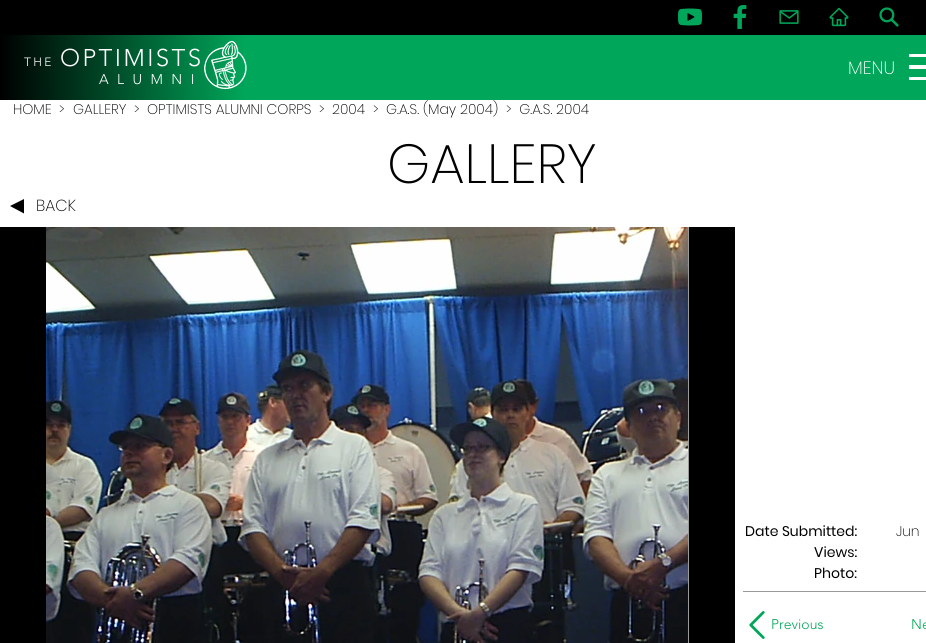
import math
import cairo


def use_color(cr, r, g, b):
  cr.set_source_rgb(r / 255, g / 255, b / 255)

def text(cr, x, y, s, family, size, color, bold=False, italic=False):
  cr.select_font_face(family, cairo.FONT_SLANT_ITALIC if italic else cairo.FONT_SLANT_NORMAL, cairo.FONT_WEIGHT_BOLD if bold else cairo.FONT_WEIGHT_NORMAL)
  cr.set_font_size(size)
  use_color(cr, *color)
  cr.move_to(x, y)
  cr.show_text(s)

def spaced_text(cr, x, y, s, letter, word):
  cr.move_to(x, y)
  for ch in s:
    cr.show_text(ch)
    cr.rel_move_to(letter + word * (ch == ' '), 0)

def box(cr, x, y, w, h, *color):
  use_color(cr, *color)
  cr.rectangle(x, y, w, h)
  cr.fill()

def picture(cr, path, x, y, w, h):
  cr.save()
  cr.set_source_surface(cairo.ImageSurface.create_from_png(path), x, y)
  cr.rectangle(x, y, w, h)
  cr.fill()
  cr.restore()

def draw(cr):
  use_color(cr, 255, 255, 255)
  cr.paint()
  box(cr, 0, 0, 926, 35, 0, 0, 0)
  picture(cr, "img_01.png", 678, 8, 24, 18)
  picture(cr, "img_02.png", 733, 5, 14, 24)
  picture(cr, "img_03.png", 779, 10, 20, 14)
  picture(cr, "img_04.png", 829, 7, 20, 20)
  picture(cr, "img_05.png", 879, 7, 20, 20)
  box(cr, 245, 35, 681, 65, 0, 166, 89)
  gradient = cairo.LinearGradient(0, 68, 245, 67)
  gradient.add_color_stop_rgba(0, 0, 0, 0, 1)
  gradient.add_color_stop_rgba(1, 0, 0.651, 0.349, 1)
  cr.set_source(gradient)
  cr.rectangle(0, 35, 245, 65)
  cr.fill()
  picture(cr, "img_06.png", 204, 40, 43, 50)
  box(cr, 909, 77, 17, 3, 255, 255, 255)
  box(cr, 909, 54, 17, 3, 255, 255, 255)
  box(cr, 909, 65, 17, 4, 255, 255, 255)
  use_color(cr, 0, 0, 0)
  cr.new_path()
  cr.move_to(24, 213.5)
  cr.line_to(10, 206)
  cr.line_to(24, 199)
  cr.close_path()
  cr.fill()
  gradient = cairo.LinearGradient(0, 468, 735, 468)
  gradient.add_color_stop_rgba(0.15, 0, 0, 0, 1)
  gradient.add_color_stop_rgba(0.41, 1, 1, 1, 1)
  gradient.add_color_stop_rgba(0.6, 1, 1, 1, 1)
  gradient.add_color_stop_rgba(0.85, 0, 0, 0, 1)
  cr.set_source(gradient)
  cr.rectangle(0, 227, 735, 416)
  cr.fill()
  box(cr, 688, 227, 1, 416, 153, 153, 153)
  picture(cr, "img_07.png", 46, 227, 642, 416)
  box(cr, 743, 591, 183, 1, 153, 153, 153)
  picture(cr, "img_08.png", 749, 611, 16, 28)
  cr.select_font_face("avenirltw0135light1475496 Light")
  cr.set_font_size(12)
  use_color(cr, 255, 255, 255)
  spaced_text(cr, 24, 66, "THE", 2.4, 0)
  cr.set_font_size(24)
  spaced_text(cr, 60, 66, "OPTIMISTS", 2.4, 0)
  cr.set_font_size(14)
  spaced_text(cr, 99, 84, "A L U M N I", 2.4, 0)
  text(cr, 848, 74, "MENU", "Poppins ExtraLight", 18, (255, 255, 255))
  text(cr, 13, 114, "HOME", "Poppins ExtraLight", 14, (0, 0, 0))
  text(cr, 59, 114, ">", "Poppins ExtraLight", 14, (0, 0, 0))
  text(cr, 73, 114, "GALLERY", "Poppins ExtraLight", 14, (0, 0, 0))
  text(cr, 134, 114, ">", "Poppins ExtraLight", 14, (0, 0, 0))
  text(cr, 147, 114, "OPTIMISTS ALUMNI CORPS", "Poppins ExtraLight", 14, (0, 0, 0))
  text(cr, 319, 114, ">", "Poppins ExtraLight", 14, (0, 0, 0))
  text(cr, 332, 114, "2004", "Poppins ExtraLight", 14, (0, 0, 0))
  text(cr, 373, 114, ">", "Poppins ExtraLight", 14, (0, 0, 0))
  text(cr, 386, 114, "G.A.S. (May 2004)", "Poppins ExtraLight", 14, (0, 0, 0))
  text(cr, 506, 114, ">  G.A.S. 2004", "Poppins ExtraLight", 14, (0, 0, 0))
  text(cr, 387, 183, "GALLERY", "Poppins ExtraLight", 55, (0, 0, 0))
  text(cr, 36, 211, "BACK", "Poppins ExtraLight", 16, (0, 0, 0))
  text(cr, 745, 536, "Date Submitted:", "Poppins", 14, (0, 0, 0))
  text(cr, 896, 536, "Jun", "Poppins ExtraLight", 14, (0, 0, 0))
  text(cr, 814, 557, "Views:", "Poppins", 14, (0, 0, 0))
  text(cr, 814, 578, "Photo:", "Poppins", 14, (0, 0, 0))
  text(cr, 771, 629, "Previous", "avenirltw0135light1475496 Light", 14, (0, 166, 89))
  text(cr, 911, 629, "Ne", "avenirltw0135light1475496 Light", 14, (0, 166, 89))


surface = cairo.ImageSurface(cairo.FORMAT_RGB24, 926, 643)
cr = cairo.Context(surface)
options = cairo.FontOptions()
options.set_hint_metrics(cairo.HINT_METRICS_OFF)
options.set_hint_style(cairo.HINT_STYLE_NONE)
cr.set_font_options(options)
cr.set_miter_limit(4)
draw(cr)
surface.write_to_png("out.png")
